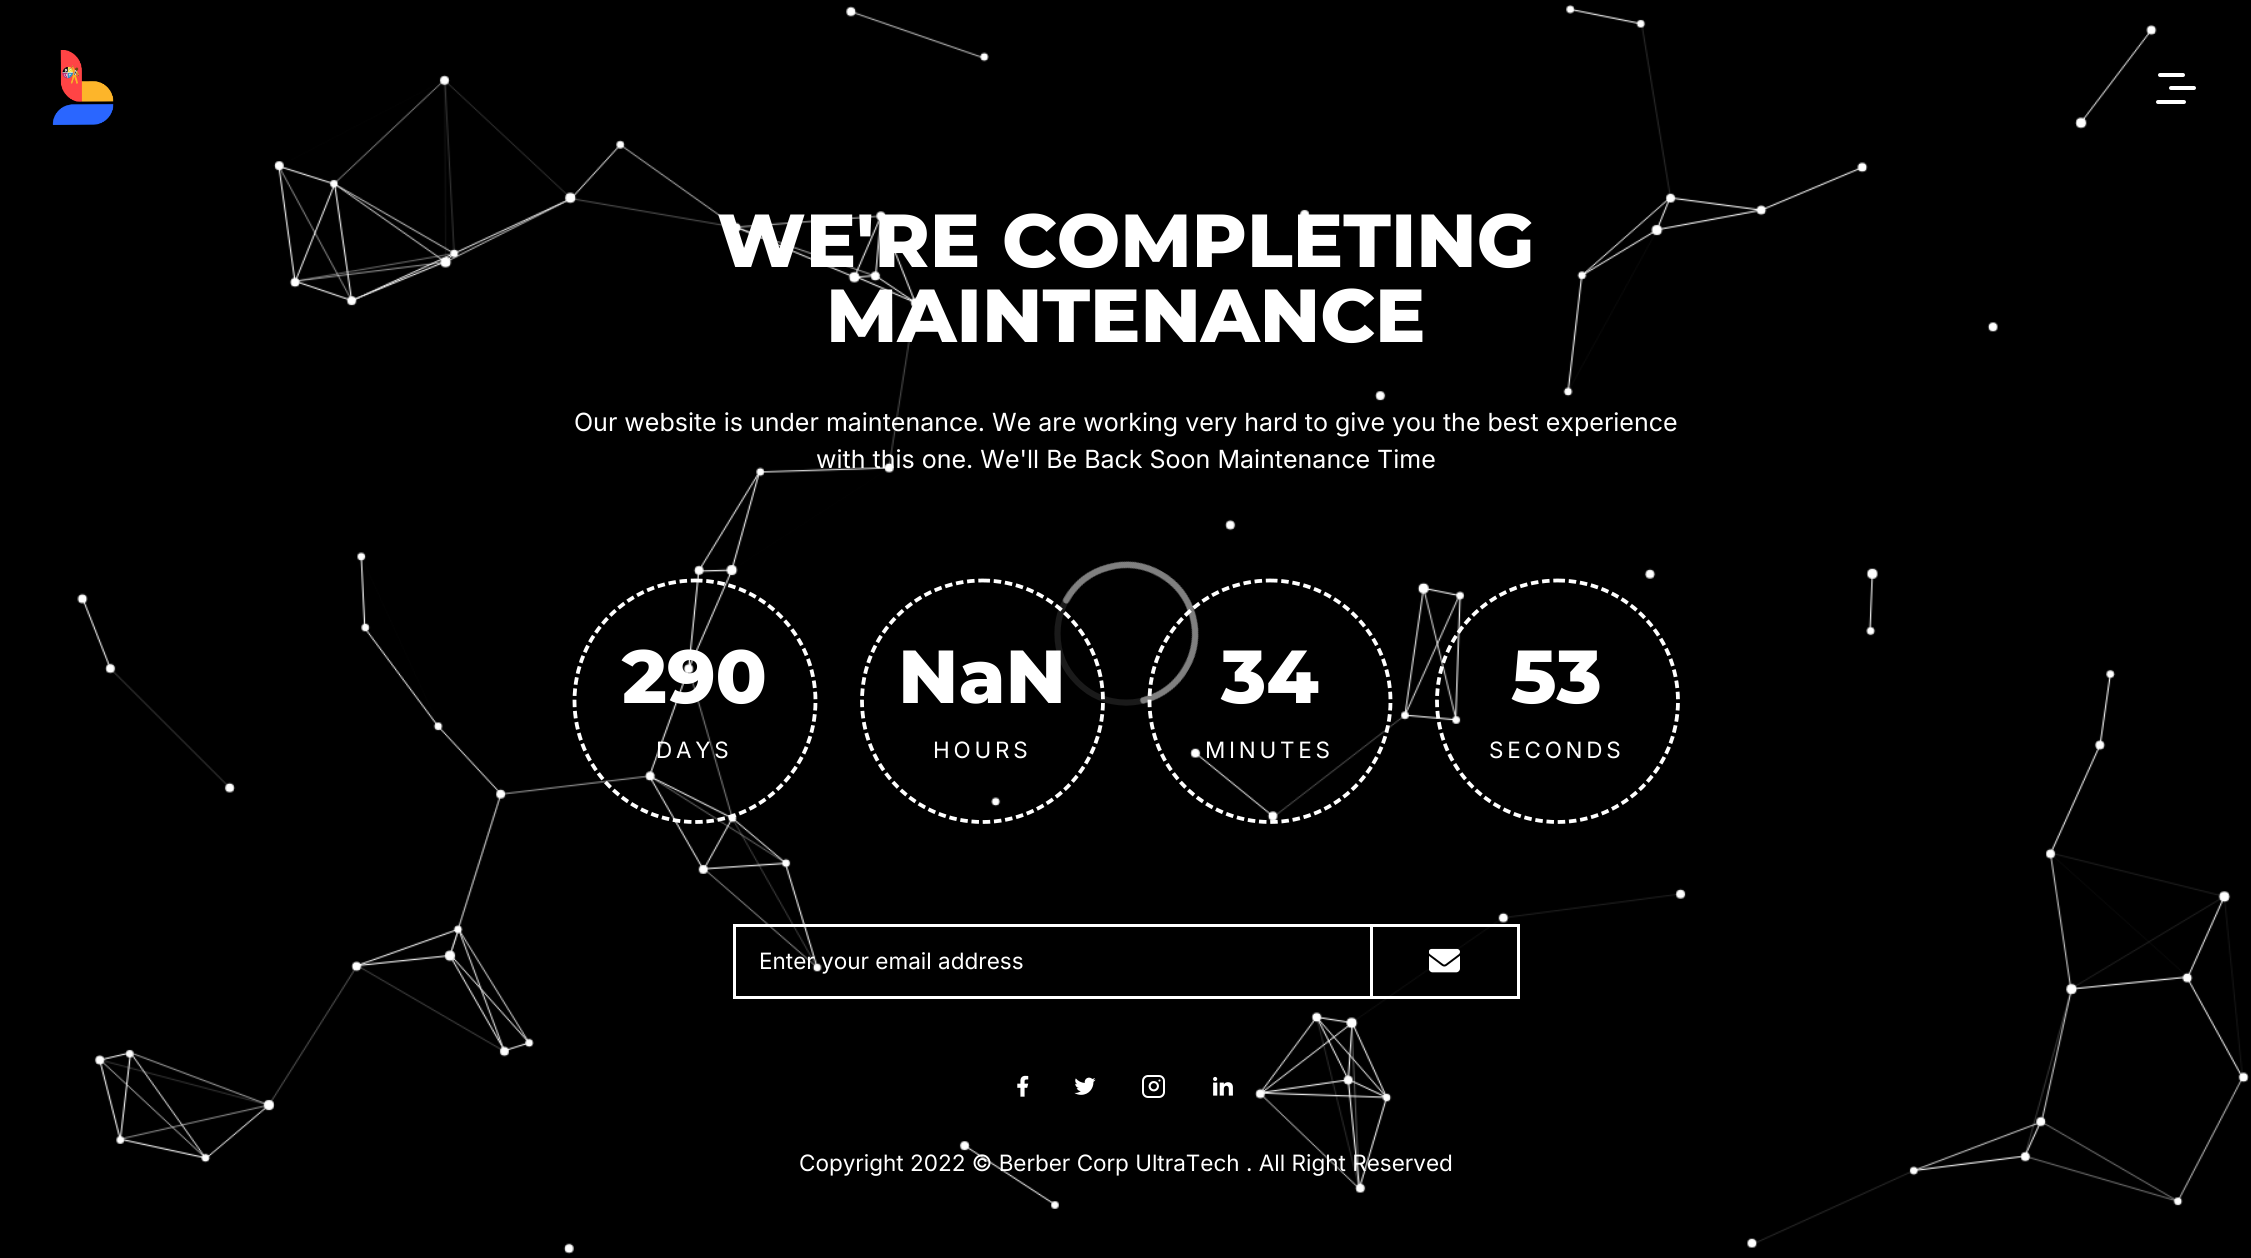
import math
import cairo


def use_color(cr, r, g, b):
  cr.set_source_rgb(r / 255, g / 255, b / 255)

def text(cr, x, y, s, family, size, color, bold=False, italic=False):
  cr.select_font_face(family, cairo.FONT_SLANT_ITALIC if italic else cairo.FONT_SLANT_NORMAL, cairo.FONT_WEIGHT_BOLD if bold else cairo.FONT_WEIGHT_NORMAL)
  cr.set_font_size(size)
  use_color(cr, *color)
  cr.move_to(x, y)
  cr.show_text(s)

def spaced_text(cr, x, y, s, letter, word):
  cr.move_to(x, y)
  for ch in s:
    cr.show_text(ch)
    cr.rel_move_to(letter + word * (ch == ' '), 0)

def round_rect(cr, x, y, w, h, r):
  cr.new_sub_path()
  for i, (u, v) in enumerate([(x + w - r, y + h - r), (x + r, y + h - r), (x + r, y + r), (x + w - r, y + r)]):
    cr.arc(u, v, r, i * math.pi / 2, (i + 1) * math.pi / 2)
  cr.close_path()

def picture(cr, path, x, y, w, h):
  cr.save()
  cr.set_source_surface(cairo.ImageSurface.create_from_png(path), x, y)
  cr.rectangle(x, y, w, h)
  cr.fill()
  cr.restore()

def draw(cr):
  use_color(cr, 255, 255, 255)
  cr.paint()
  picture(cr, "img_03.png", 0, 0, 2251, 1258)
  picture(cr, "img_01.png", 77, 4, 2172, 1250)
  picture(cr, "img_02.png", 52, 50, 62, 75)
  use_color(cr, 255, 255, 255)
  round_rect(cr, 2158, 73, 27, 4, 2)
  cr.fill()
  round_rect(cr, 2169, 86, 27, 4, 2)
  cr.fill()
  round_rect(cr, 2156, 100, 30, 4, 2)
  cr.fill()
  cr.new_path()
  cr.move_to(695, 580.5)
  cr.curve_to(761.5, 580.5, 815.5, 634.5, 815.5, 701)
  cr.curve_to(815.5, 768, 761.5, 822, 695, 822)
  cr.curve_to(628.5, 822, 574.5, 768, 574.5, 701)
  cr.curve_to(574.5, 634.5, 628.5, 580.5, 695, 580.5)
  cr.close_path()
  cr.set_line_width(3.8)
  cr.set_dash([7.5, 3.75])
  cr.stroke()
  cr.new_path()
  cr.move_to(982.5, 580.5)
  cr.curve_to(1049, 580.5, 1103, 634.5, 1103, 701)
  cr.curve_to(1103, 768, 1049, 822, 982.5, 822)
  cr.curve_to(916, 822, 862, 768, 862, 701)
  cr.curve_to(862, 634.5, 916, 580.5, 982.5, 580.5)
  cr.close_path()
  cr.stroke()
  cr.new_path()
  cr.move_to(1270, 580.5)
  cr.curve_to(1336.5, 580.5, 1390.5, 634.5, 1390.5, 701)
  cr.curve_to(1390.5, 768, 1336.5, 822, 1270, 822)
  cr.curve_to(1203.5, 822, 1149.5, 768, 1149.5, 701)
  cr.curve_to(1149.5, 634.5, 1203.5, 580.5, 1270, 580.5)
  cr.close_path()
  cr.stroke()
  cr.new_path()
  cr.move_to(1557.5, 580.5)
  cr.curve_to(1624, 580.5, 1678, 634.5, 1678, 701)
  cr.curve_to(1678, 768, 1624, 822, 1557.5, 822)
  cr.curve_to(1491, 822, 1437, 768, 1437, 701)
  cr.curve_to(1437, 634.5, 1491, 580.5, 1557.5, 580.5)
  cr.close_path()
  cr.stroke()
  cr.rectangle(734.5, 925.5, 784, 72)
  cr.set_line_width(3)
  cr.set_dash([])
  cr.stroke()
  cr.rectangle(1371.5, 925.5, 147, 72)
  cr.stroke()
  picture(cr, "img_04.png", 1429, 948, 31, 25)
  picture(cr, "img_05.png", 1017, 1075, 12, 22)
  picture(cr, "img_06.png", 1074, 1077, 22, 18)
  picture(cr, "img_07.png", 1142, 1075, 23, 23)
  picture(cr, "img_08.png", 1213, 1076, 20, 20)
  text(cr, 717, 267, "WE'RE COMPLETING", "Montserrat Thin", 75, (255, 255, 255))
  text(cr, 826, 342, "MAINTENANCE", "Montserrat Thin", 75, (255, 255, 255))
  text(cr, 574, 431, "Our website is under maintenance. We are working very hard to give you the best experience", "Inter", 25, (255, 255, 255))
  text(cr, 816, 468, "with this one. We'll Be Back Soon Maintenance Time", "Inter", 25, (255, 255, 255))
  text(cr, 622, 703, "290", "Montserrat Thin", 75, (255, 255, 255))
  cr.select_font_face("Inter")
  cr.set_font_size(22.5)
  spaced_text(cr, 656, 758, "DAYS", 3.75, 0)
  text(cr, 898, 703, "NaN", "Montserrat Thin", 75, (255, 255, 255))
  cr.select_font_face("Inter")
  cr.set_font_size(22.5)
  spaced_text(cr, 933, 758, "HOURS", 3.75, 0)
  text(cr, 1221, 703, "34", "Montserrat Thin", 75, (255, 255, 255))
  cr.select_font_face("Inter")
  cr.set_font_size(22.5)
  spaced_text(cr, 1205, 758, "MINUTES", 3.75, 0)
  text(cr, 1511, 703, "53", "Montserrat Thin", 75, (255, 255, 255))
  cr.select_font_face("Inter")
  cr.set_font_size(22.5)
  spaced_text(cr, 1489, 758, "SECONDS", 3.75, 0)
  text(cr, 759, 969, "Enter your email address", "Inter", 22.5, (255, 255, 255))
  text(cr, 799, 1171, "Copyright 2022 © Berber Corp UltraTech . All Right Reserved", "Inter", 22.5, (255, 255, 255))


surface = cairo.ImageSurface(cairo.FORMAT_RGB24, 2251, 1258)
cr = cairo.Context(surface)
options = cairo.FontOptions()
options.set_hint_metrics(cairo.HINT_METRICS_OFF)
options.set_hint_style(cairo.HINT_STYLE_NONE)
cr.set_font_options(options)
cr.set_miter_limit(4)
draw(cr)
surface.write_to_png("out.png")
